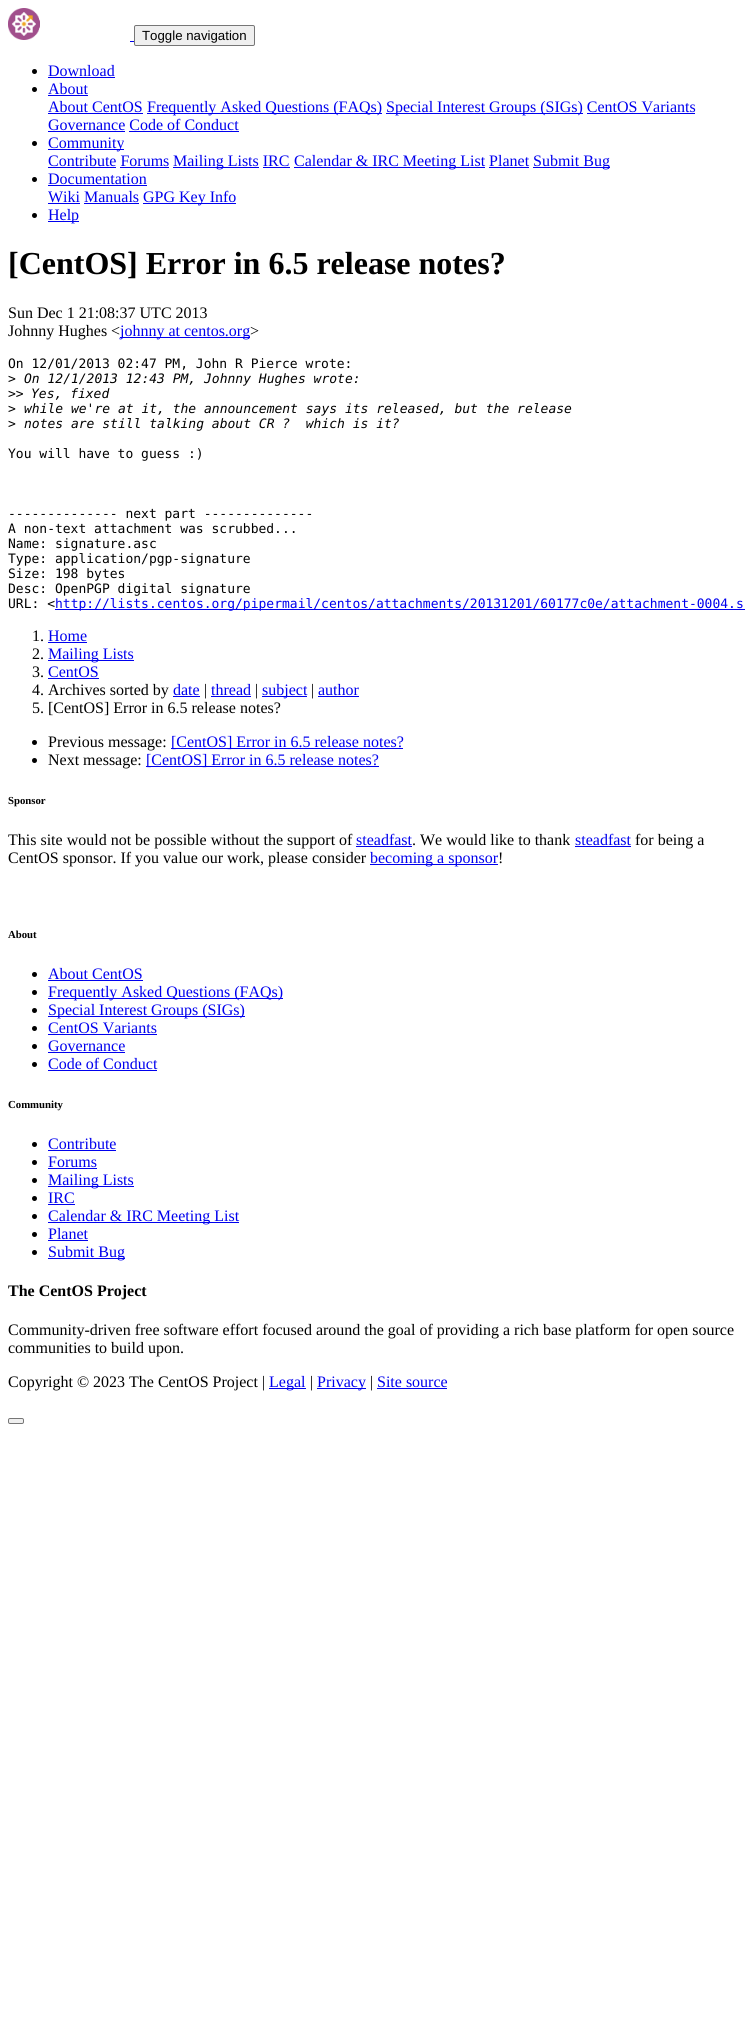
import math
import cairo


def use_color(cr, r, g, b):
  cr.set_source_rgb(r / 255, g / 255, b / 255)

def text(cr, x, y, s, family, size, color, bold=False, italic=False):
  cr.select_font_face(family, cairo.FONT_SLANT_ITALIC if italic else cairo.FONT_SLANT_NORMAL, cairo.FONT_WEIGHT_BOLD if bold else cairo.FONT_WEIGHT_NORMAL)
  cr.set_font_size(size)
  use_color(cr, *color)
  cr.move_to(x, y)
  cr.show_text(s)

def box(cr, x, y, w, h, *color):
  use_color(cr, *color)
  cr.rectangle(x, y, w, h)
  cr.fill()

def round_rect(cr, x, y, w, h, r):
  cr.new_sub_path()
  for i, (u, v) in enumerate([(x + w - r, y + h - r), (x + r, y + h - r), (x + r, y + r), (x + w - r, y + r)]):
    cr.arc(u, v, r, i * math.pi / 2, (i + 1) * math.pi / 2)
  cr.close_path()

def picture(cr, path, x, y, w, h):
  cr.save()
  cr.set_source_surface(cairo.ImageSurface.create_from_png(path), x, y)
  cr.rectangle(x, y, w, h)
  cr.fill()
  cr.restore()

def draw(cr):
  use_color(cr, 255, 255, 255)
  cr.paint()
  picture(cr, "img_01.png", 8, 8, 32, 32)
  box(cr, 130, 41, 4, 1, 0, 0, 238)
  use_color(cr, 239, 239, 239)
  round_rect(cr, 134.5, 25.5, 120, 20, 1.5)
  cr.fill_preserve()
  use_color(cr, 118, 118, 118)
  cr.set_line_width(1)
  cr.stroke()
  use_color(cr, 0, 0, 0)
  cr.arc(34.5, 71.5, 2.5, 0, 2 * math.pi)
  cr.fill()
  box(cr, 48, 77, 67, 1, 0, 0, 238)
  use_color(cr, 0, 0, 0)
  cr.arc(34.5, 89.5, 2.5, 0, 2 * math.pi)
  cr.fill()
  box(cr, 48, 95, 40, 1, 0, 0, 238)
  box(cr, 48, 113, 95, 1, 0, 0, 238)
  box(cr, 147, 113, 235, 1, 0, 0, 238)
  box(cr, 386, 113, 197, 1, 0, 0, 238)
  box(cr, 587, 113, 108, 1, 0, 0, 238)
  box(cr, 48, 131, 77, 1, 0, 0, 238)
  box(cr, 129, 131, 110, 1, 0, 0, 238)
  use_color(cr, 0, 0, 0)
  cr.arc(34.5, 143.5, 2.5, 0, 2 * math.pi)
  cr.fill()
  box(cr, 48, 149, 76, 1, 0, 0, 238)
  box(cr, 48, 167, 68, 1, 0, 0, 238)
  box(cr, 173, 167, 86, 1, 0, 0, 238)
  box(cr, 294, 167, 191, 1, 0, 0, 238)
  box(cr, 533, 167, 77, 1, 0, 0, 238)
  box(cr, 120, 167, 49, 1, 0, 0, 238)
  box(cr, 263, 167, 27, 1, 0, 0, 238)
  box(cr, 489, 167, 40, 1, 0, 0, 238)
  use_color(cr, 0, 0, 0)
  cr.arc(34.5, 179.5, 2.5, 0, 2 * math.pi)
  cr.fill()
  box(cr, 48, 185, 99, 1, 0, 0, 238)
  box(cr, 48, 203, 32, 1, 0, 0, 238)
  box(cr, 143, 203, 93, 1, 0, 0, 238)
  box(cr, 84, 203, 55, 1, 0, 0, 238)
  use_color(cr, 0, 0, 0)
  cr.arc(34.5, 215.5, 2.5, 0, 2 * math.pi)
  cr.fill()
  box(cr, 48, 221, 31, 1, 0, 0, 238)
  box(cr, 120, 337, 130, 1, 0, 0, 238)
  box(cr, 55, 609, 690, 1, 0, 0, 238)
  box(cr, 48, 642, 39, 1, 0, 0, 238)
  box(cr, 48, 660, 86, 1, 0, 0, 238)
  box(cr, 48, 678, 51, 1, 0, 0, 238)
  box(cr, 173, 696, 27, 1, 0, 0, 238)
  box(cr, 211, 696, 40, 1, 0, 0, 238)
  box(cr, 262, 696, 45, 1, 0, 0, 238)
  box(cr, 318, 696, 41, 1, 0, 0, 238)
  use_color(cr, 0, 0, 0)
  cr.arc(34.5, 742.5, 2.5, 0, 2 * math.pi)
  cr.fill()
  box(cr, 171, 748, 232, 1, 0, 0, 238)
  use_color(cr, 0, 0, 0)
  cr.arc(34.5, 760.5, 2.5, 0, 2 * math.pi)
  cr.fill()
  box(cr, 146, 766, 233, 1, 0, 0, 238)
  box(cr, 356, 846, 56, 1, 0, 0, 238)
  box(cr, 575, 846, 56, 1, 0, 0, 238)
  box(cr, 370, 864, 128, 1, 0, 0, 238)
  use_color(cr, 0, 0, 0)
  cr.arc(34.5, 974.5, 2.5, 0, 2 * math.pi)
  cr.fill()
  box(cr, 48, 980, 95, 1, 0, 0, 238)
  use_color(cr, 0, 0, 0)
  cr.arc(34.5, 992.5, 2.5, 0, 2 * math.pi)
  cr.fill()
  box(cr, 48, 998, 235, 1, 0, 0, 238)
  use_color(cr, 0, 0, 0)
  cr.arc(34.5, 1010.5, 2.5, 0, 2 * math.pi)
  cr.fill()
  box(cr, 48, 1016, 197, 1, 0, 0, 238)
  use_color(cr, 0, 0, 0)
  cr.arc(34.5, 1028.5, 2.5, 0, 2 * math.pi)
  cr.fill()
  box(cr, 48, 1034, 109, 1, 0, 0, 238)
  use_color(cr, 0, 0, 0)
  cr.arc(34.5, 1046.5, 2.5, 0, 2 * math.pi)
  cr.fill()
  box(cr, 48, 1052, 77, 1, 0, 0, 238)
  use_color(cr, 0, 0, 0)
  cr.arc(34.5, 1064.5, 2.5, 0, 2 * math.pi)
  cr.fill()
  box(cr, 48, 1070, 109, 1, 0, 0, 238)
  use_color(cr, 0, 0, 0)
  cr.arc(34.5, 1144.5, 2.5, 0, 2 * math.pi)
  cr.fill()
  box(cr, 48, 1150, 68, 1, 0, 0, 238)
  use_color(cr, 0, 0, 0)
  cr.arc(34.5, 1162.5, 2.5, 0, 2 * math.pi)
  cr.fill()
  box(cr, 48, 1168, 49, 1, 0, 0, 238)
  use_color(cr, 0, 0, 0)
  cr.arc(34.5, 1180.5, 2.5, 0, 2 * math.pi)
  cr.fill()
  box(cr, 48, 1186, 86, 1, 0, 0, 238)
  use_color(cr, 0, 0, 0)
  cr.arc(34.5, 1198.5, 2.5, 0, 2 * math.pi)
  cr.fill()
  box(cr, 48, 1204, 27, 1, 0, 0, 238)
  use_color(cr, 0, 0, 0)
  cr.arc(34.5, 1216.5, 2.5, 0, 2 * math.pi)
  cr.fill()
  box(cr, 48, 1222, 191, 1, 0, 0, 238)
  use_color(cr, 0, 0, 0)
  cr.arc(34.5, 1234.5, 2.5, 0, 2 * math.pi)
  cr.fill()
  box(cr, 48, 1240, 40, 1, 0, 0, 238)
  use_color(cr, 0, 0, 0)
  cr.arc(34.5, 1252.5, 2.5, 0, 2 * math.pi)
  cr.fill()
  box(cr, 48, 1258, 77, 1, 0, 0, 238)
  box(cr, 269, 1388, 37, 1, 0, 0, 238)
  box(cr, 317, 1388, 49, 1, 0, 0, 238)
  box(cr, 377, 1388, 70, 1, 0, 0, 238)
  use_color(cr, 239, 239, 239)
  round_rect(cr, 8.5, 1418.5, 15, 5, 1.5)
  cr.fill_preserve()
  use_color(cr, 118, 118, 118)
  cr.stroke()
  text(cr, 142, 40, "Toggle navigation", "Liberation Sans", 13.25, (0, 0, 0))
  text(cr, 48, 76, "Download", "Liberation Serif", 16, (0, 0, 238))
  text(cr, 48, 94, "About", "Liberation Serif", 16, (0, 0, 238))
  text(cr, 48, 112, "About CentOS", "Liberation Serif", 16, (0, 0, 238))
  text(cr, 147, 112, "Frequently Asked Questions (FAQs)", "Liberation Serif", 16, (0, 0, 238))
  text(cr, 386, 112, "Special Interest Groups (SIGs) CentOS Variants", "Liberation Serif", 16, (0, 0, 238))
  text(cr, 48, 130, "Governance Code of Conduct", "Liberation Serif", 16, (0, 0, 238))
  text(cr, 48, 148, "Community", "Liberation Serif", 16, (0, 0, 238))
  text(cr, 48, 166, "Contribute Forums", "Liberation Serif", 16, (0, 0, 238))
  text(cr, 173, 166, "Mailing Lists IRC", "Liberation Serif", 16, (0, 0, 238))
  text(cr, 294, 166, "Calendar & IRC Meeting List Planet", "Liberation Serif", 16, (0, 0, 238))
  text(cr, 533, 166, "Submit Bug", "Liberation Serif", 16, (0, 0, 238))
  text(cr, 48, 184, "Documentation", "Liberation Serif", 16, (0, 0, 238))
  text(cr, 48, 202, "Wiki Manuals", "Liberation Serif", 16, (0, 0, 238))
  text(cr, 143, 202, "GPG Key Info", "Liberation Serif", 16, (0, 0, 238))
  text(cr, 48, 220, "Help", "Liberation Serif", 16, (0, 0, 238))
  text(cr, 8, 274, "[CentOS] Error in 6.5 release notes?", "Liberation Serif", 32, (0, 0, 0), bold=True)
  text(cr, 8, 318, "Sun Dec 1 21:08:37 UTC 2013", "Liberation Serif", 16, (0, 0, 0))
  text(cr, 8, 336, "Johnny Hughes <", "Liberation Serif", 16, (0, 0, 0))
  text(cr, 120, 336, "johnny at centos.org", "Liberation Serif", 16, (0, 0, 238))
  text(cr, 250, 336, ">", "Liberation Serif", 16, (0, 0, 0))
  text(cr, 8, 368, "On 12/01/2013 02:47 PM, John R Pierce wrote:", "DejaVu Sans Mono", 13, (0, 0, 0))
  text(cr, 8, 383, ">", "DejaVu Sans Mono", 13, (0, 0, 0))
  text(cr, 24, 383, "On 12/1/2013 12:43 PM, Johnny Hughes wrote:", "DejaVu Sans Mono", 13, (0, 0, 0), italic=True)
  text(cr, 8, 398, ">>", "DejaVu Sans Mono", 13, (0, 0, 0))
  text(cr, 31, 398, "Yes, fixed", "DejaVu Sans Mono", 13, (0, 0, 0), italic=True)
  text(cr, 8, 413, ">", "DejaVu Sans Mono", 13, (0, 0, 0))
  text(cr, 24, 413, "while we're at it, the announcement says its released, but the release", "DejaVu Sans Mono", 13, (0, 0, 0), italic=True)
  text(cr, 8, 428, ">", "DejaVu Sans Mono", 13, (0, 0, 0))
  text(cr, 24, 428, "notes are still talking about CR ?  which is it?", "DejaVu Sans Mono", 13, (0, 0, 0), italic=True)
  text(cr, 8, 458, "You will have to guess :)", "DejaVu Sans Mono", 13, (0, 0, 0))
  text(cr, 8, 518, "-------------- next part --------------", "DejaVu Sans Mono", 13, (0, 0, 0))
  text(cr, 8, 533, "A non-text attachment was scrubbed...", "DejaVu Sans Mono", 13, (0, 0, 0))
  text(cr, 8, 548, "Name: signature.asc", "DejaVu Sans Mono", 13, (0, 0, 0))
  text(cr, 8, 563, "Type: application/pgp-signature", "DejaVu Sans Mono", 13, (0, 0, 0))
  text(cr, 8, 578, "Size: 198 bytes", "DejaVu Sans Mono", 13, (0, 0, 0))
  text(cr, 8, 593, "Desc: OpenPGP digital signature", "DejaVu Sans Mono", 13, (0, 0, 0))
  text(cr, 8, 608, "URL: <", "DejaVu Sans Mono", 13, (0, 0, 0))
  text(cr, 55, 608, "http://lists.centos.org/pipermail/centos/attachments/20131201/60177c0e/attachment-0004.s", "DejaVu Sans Mono", 13, (0, 0, 238))
  text(cr, 32, 641, "1.", "Liberation Serif", 16, (0, 0, 0))
  text(cr, 48, 641, "Home", "Liberation Serif", 16, (0, 0, 238))
  text(cr, 32, 659, "2.", "Liberation Serif", 16, (0, 0, 0))
  text(cr, 48, 659, "Mailing Lists", "Liberation Serif", 16, (0, 0, 238))
  text(cr, 32, 677, "3.", "Liberation Serif", 16, (0, 0, 0))
  text(cr, 48, 677, "CentOS", "Liberation Serif", 16, (0, 0, 238))
  text(cr, 32, 695, "4. Archives sorted by", "Liberation Serif", 16, (0, 0, 0))
  text(cr, 173, 695, "date", "Liberation Serif", 16, (0, 0, 238))
  text(cr, 204, 695, "|", "Liberation Serif", 16, (0, 0, 0))
  text(cr, 211, 695, "thread", "Liberation Serif", 16, (0, 0, 238))
  text(cr, 255, 695, "|", "Liberation Serif", 16, (0, 0, 0))
  text(cr, 262, 695, "subject", "Liberation Serif", 16, (0, 0, 238))
  text(cr, 311, 695, "|", "Liberation Serif", 16, (0, 0, 0))
  text(cr, 318, 695, "author", "Liberation Serif", 16, (0, 0, 238))
  text(cr, 32, 713, "5. [CentOS] Error in 6.5 release notes?", "Liberation Serif", 16, (0, 0, 0))
  text(cr, 48, 747, "Previous message:", "Liberation Serif", 16, (0, 0, 0))
  text(cr, 171, 747, "[CentOS] Error in 6.5 release notes?", "Liberation Serif", 16, (0, 0, 238))
  text(cr, 48, 765, "Next message:", "Liberation Serif", 16, (0, 0, 0))
  text(cr, 146, 765, "[CentOS] Error in 6.5 release notes?", "Liberation Serif", 16, (0, 0, 238))
  text(cr, 8, 804, "Sponsor", "Liberation Serif", 10.75, (0, 0, 0), bold=True)
  text(cr, 8, 845, "This site would not be possible without the support of", "Liberation Serif", 16, (0, 0, 0))
  text(cr, 356, 845, "steadfast", "Liberation Serif", 16, (0, 0, 238))
  text(cr, 412, 845, ". We would like to thank", "Liberation Serif", 16, (0, 0, 0))
  text(cr, 575, 845, "steadfast", "Liberation Serif", 16, (0, 0, 238))
  text(cr, 635, 845, "for being a", "Liberation Serif", 16, (0, 0, 0))
  text(cr, 8, 863, "CentOS sponsor. If you value our work, please consider", "Liberation Serif", 16, (0, 0, 0))
  text(cr, 370, 863, "becoming a sponsor", "Liberation Serif", 16, (0, 0, 238))
  text(cr, 498, 863, "!", "Liberation Serif", 16, (0, 0, 0))
  text(cr, 8, 938, "About", "Liberation Serif", 10.75, (0, 0, 0), bold=True)
  text(cr, 48, 979, "About CentOS", "Liberation Serif", 16, (0, 0, 238))
  text(cr, 48, 997, "Frequently Asked Questions (FAQs)", "Liberation Serif", 16, (0, 0, 238))
  text(cr, 48, 1015, "Special Interest Groups (SIGs)", "Liberation Serif", 16, (0, 0, 238))
  text(cr, 48, 1033, "CentOS Variants", "Liberation Serif", 16, (0, 0, 238))
  text(cr, 48, 1051, "Governance", "Liberation Serif", 16, (0, 0, 238))
  text(cr, 48, 1069, "Code of Conduct", "Liberation Serif", 16, (0, 0, 238))
  text(cr, 8, 1108, "Community", "Liberation Serif", 10.75, (0, 0, 0), bold=True)
  text(cr, 48, 1149, "Contribute", "Liberation Serif", 16, (0, 0, 238))
  text(cr, 48, 1167, "Forums", "Liberation Serif", 16, (0, 0, 238))
  text(cr, 48, 1185, "Mailing Lists", "Liberation Serif", 16, (0, 0, 238))
  text(cr, 48, 1203, "IRC", "Liberation Serif", 16, (0, 0, 238))
  text(cr, 48, 1221, "Calendar & IRC Meeting List", "Liberation Serif", 16, (0, 0, 238))
  text(cr, 48, 1239, "Planet", "Liberation Serif", 16, (0, 0, 238))
  text(cr, 48, 1257, "Submit Bug", "Liberation Serif", 16, (0, 0, 238))
  text(cr, 8, 1296, "The CentOS Project", "Liberation Serif", 16, (0, 0, 0), bold=True)
  text(cr, 8, 1335, "Community-driven free software effort focused around the goal of providing a rich base platform for open source", "Liberation Serif", 16, (0, 0, 0))
  text(cr, 8, 1353, "communities to build upon.", "Liberation Serif", 16, (0, 0, 0))
  text(cr, 8, 1387, "Copyright © 2023 The CentOS Project |", "Liberation Serif", 16, (0, 0, 0))
  text(cr, 269, 1387, "Legal", "Liberation Serif", 16, (0, 0, 238))
  text(cr, 310, 1387, "|", "Liberation Serif", 16, (0, 0, 0))
  text(cr, 317, 1387, "Privacy", "Liberation Serif", 16, (0, 0, 238))
  text(cr, 370, 1387, "|", "Liberation Serif", 16, (0, 0, 0))
  text(cr, 377, 1387, "Site source", "Liberation Serif", 16, (0, 0, 238))


surface = cairo.ImageSurface(cairo.FORMAT_RGB24, 745, 2038)
cr = cairo.Context(surface)
options = cairo.FontOptions()
options.set_hint_metrics(cairo.HINT_METRICS_OFF)
options.set_hint_style(cairo.HINT_STYLE_NONE)
cr.set_font_options(options)
cr.set_miter_limit(4)
draw(cr)
surface.write_to_png("out.png")
